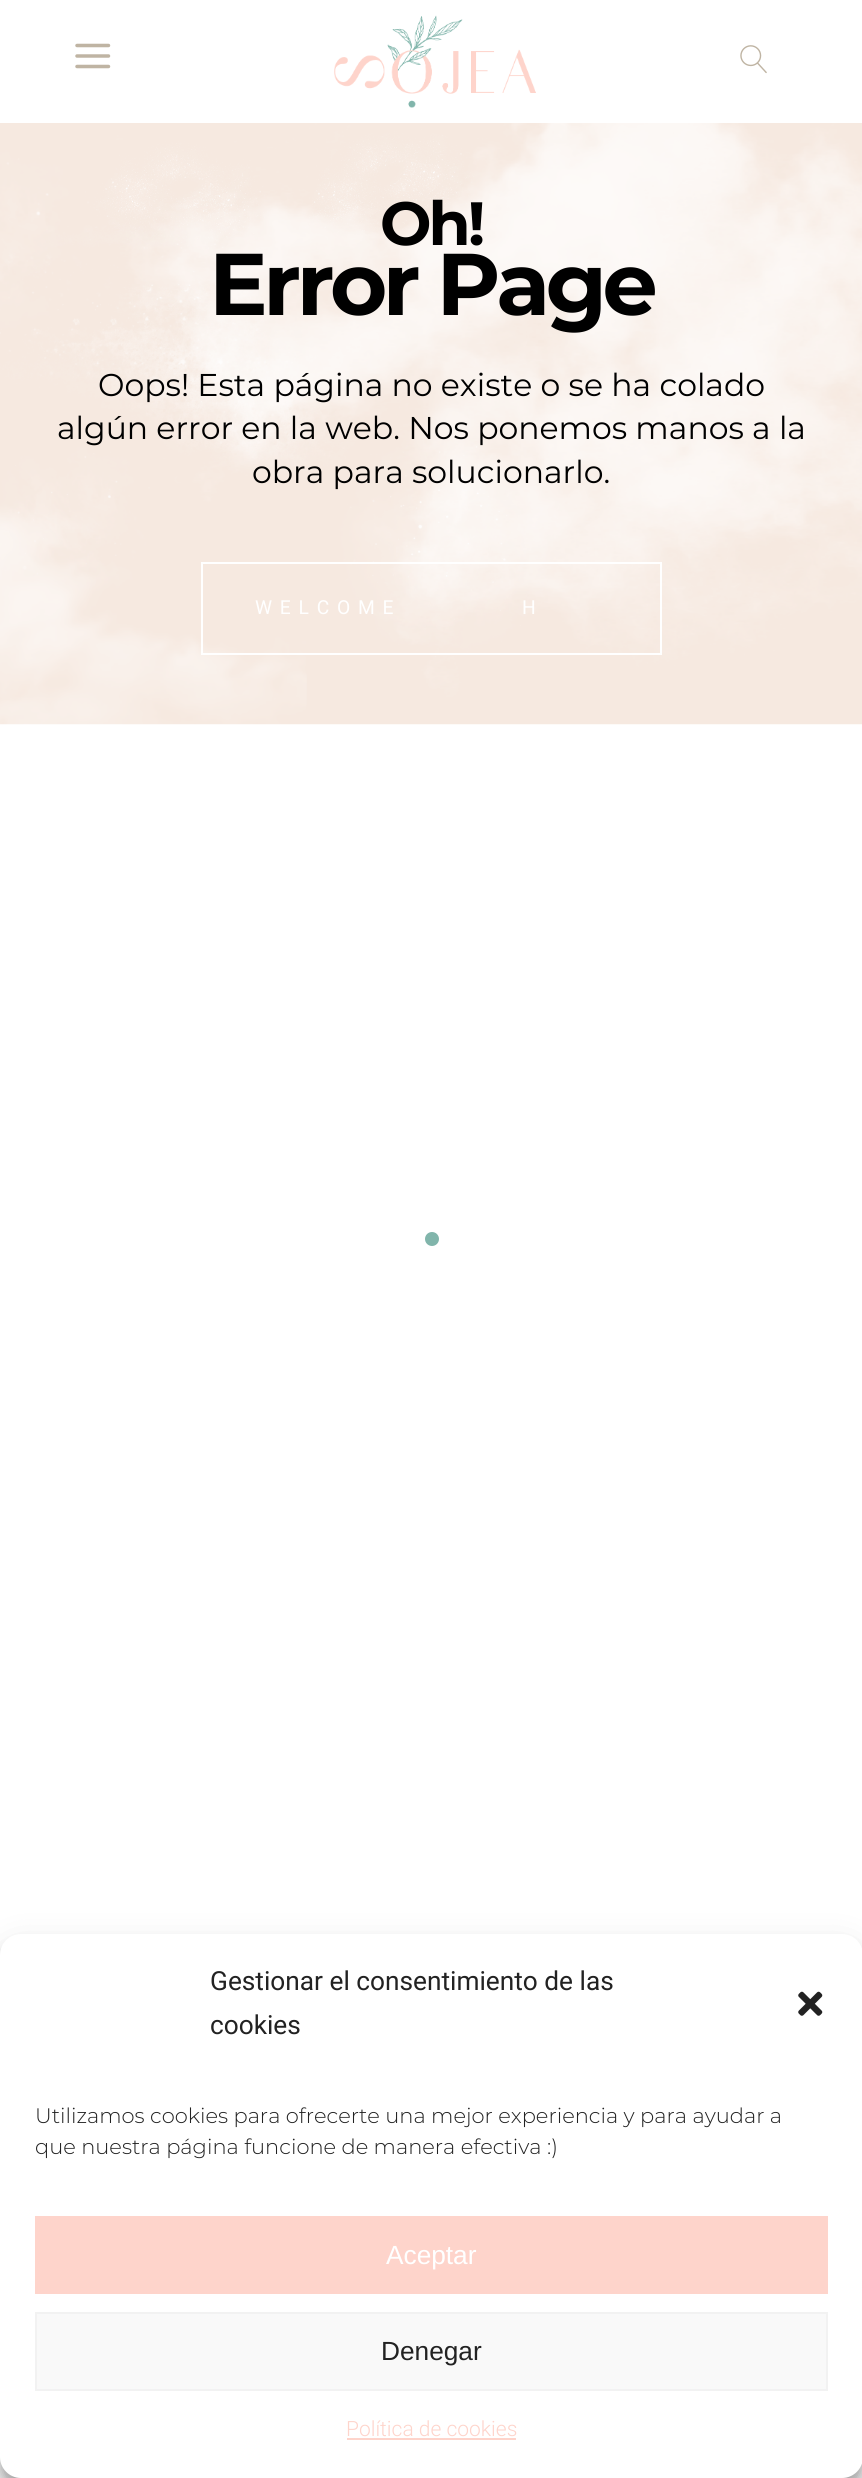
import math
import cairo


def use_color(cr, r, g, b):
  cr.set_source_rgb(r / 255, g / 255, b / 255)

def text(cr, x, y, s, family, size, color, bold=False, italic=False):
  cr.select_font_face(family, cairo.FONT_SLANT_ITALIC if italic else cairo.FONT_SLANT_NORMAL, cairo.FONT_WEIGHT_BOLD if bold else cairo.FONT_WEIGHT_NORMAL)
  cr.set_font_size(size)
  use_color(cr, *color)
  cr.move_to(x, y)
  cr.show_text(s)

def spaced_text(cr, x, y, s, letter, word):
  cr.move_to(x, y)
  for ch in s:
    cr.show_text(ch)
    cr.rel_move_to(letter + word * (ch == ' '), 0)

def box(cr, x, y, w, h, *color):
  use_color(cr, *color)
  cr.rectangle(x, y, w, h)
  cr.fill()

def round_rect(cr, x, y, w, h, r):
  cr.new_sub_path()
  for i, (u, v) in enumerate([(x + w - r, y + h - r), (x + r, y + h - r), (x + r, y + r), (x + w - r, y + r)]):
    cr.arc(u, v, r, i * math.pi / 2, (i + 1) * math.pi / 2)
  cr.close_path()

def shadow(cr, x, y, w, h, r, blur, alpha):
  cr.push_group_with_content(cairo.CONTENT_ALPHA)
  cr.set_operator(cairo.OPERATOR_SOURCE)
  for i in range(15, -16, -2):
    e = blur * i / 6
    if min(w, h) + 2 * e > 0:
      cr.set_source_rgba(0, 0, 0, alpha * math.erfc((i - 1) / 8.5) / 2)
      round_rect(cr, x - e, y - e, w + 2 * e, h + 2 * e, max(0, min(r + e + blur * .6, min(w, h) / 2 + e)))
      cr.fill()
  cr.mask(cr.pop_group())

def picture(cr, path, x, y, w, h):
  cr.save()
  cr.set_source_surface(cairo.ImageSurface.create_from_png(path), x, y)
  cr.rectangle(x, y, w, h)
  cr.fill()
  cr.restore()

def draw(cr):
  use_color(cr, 255, 255, 255)
  cr.paint()
  picture(cr, "img_01.png", 75, 43, 36, 26)
  picture(cr, "img_02.png", 334, 15, 202, 93)
  picture(cr, "img_03.png", 740, 45, 27, 29)
  picture(cr, "img_04.png", 0, 123, 862, 602)
  cr.rectangle(202, 563, 459, 91)
  use_color(cr, 255, 255, 255)
  cr.stroke()
  use_color(cr, 129, 181, 171)
  cr.arc(432, 1239, 7, 0, 2 * math.pi)
  cr.fill()
  use_color(cr, 0, 0, 0)
  shadow(cr, 0, 1944, 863, 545, 21, 5, 0.23)
  shadow(cr, 0, 1951, 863, 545, 21, 17.5, 0.19)
  use_color(cr, 255, 255, 255)
  round_rect(cr, 0, 1934, 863, 544, 21)
  cr.fill()
  picture(cr, "img_05.png", 798, 1991, 25, 25)
  box(cr, 35, 2216, 793, 78, 254, 212, 203)
  use_color(cr, 249, 249, 249)
  cr.rectangle(36, 2313, 791, 77)
  cr.fill_preserve()
  use_color(cr, 242, 242, 242)
  cr.stroke()
  box(cr, 347, 2438, 169, 2, 254, 212, 203)
  cr.select_font_face("Montserrat", cairo.FONT_SLANT_NORMAL, cairo.FONT_WEIGHT_BOLD)
  cr.set_font_size(61)
  use_color(cr, 0, 0, 0)
  spaced_text(cr, 380, 245, "Oh!", -3, 0)
  cr.set_font_size(87.5)
  spaced_text(cr, 209, 315, "Error Page", -4.4, 0)
  text(cr, 98, 396, "Oops! Esta página no existe o se ha colado", "Montserrat", 31.5, (0, 0, 0))
  text(cr, 57, 439, "algún error en la web. Nos ponemos manos a la", "Montserrat", 31.5, (0, 0, 0))
  text(cr, 252, 483, "obra para solucionarlo.", "Montserrat", 31.5, (0, 0, 0))
  cr.select_font_face("Roboto")
  cr.set_font_size(19.25)
  use_color(cr, 255, 255, 255)
  spaced_text(cr, 255, 614, "WELCOME", 7.75, 0)
  spaced_text(cr, 522, 614, "H", 7.75, 0)
  text(cr, 210, 1990, "Gestionar el consentimiento de las", "Roboto", 26.25, (34, 34, 34))
  text(cr, 210, 2034, "cookies", "Roboto", 26.25, (34, 34, 34))
  text(cr, 35, 2123, "Utilizamos cookies para ofrecerte una mejor experiencia y para ayudar a", "Montserrat Light", 21, (34, 34, 34))
  text(cr, 35, 2154, "que nuestra página funcione de manera efectiva :)", "Montserrat Light", 21, (34, 34, 34))
  text(cr, 386, 2264, "Aceptar", "Liberation Sans", 26.25, (255, 255, 255))
  text(cr, 381, 2360, "Denegar", "Liberation Sans", 26.25, (34, 34, 34))
  text(cr, 346, 2436, "Política de cookies", "Roboto Light", 21, (254, 212, 203))


surface = cairo.ImageSurface(cairo.FORMAT_RGB24, 862, 2478)
cr = cairo.Context(surface)
options = cairo.FontOptions()
options.set_hint_metrics(cairo.HINT_METRICS_OFF)
options.set_hint_style(cairo.HINT_STYLE_NONE)
cr.set_font_options(options)
cr.set_miter_limit(4)
draw(cr)
surface.write_to_png("out.png")
